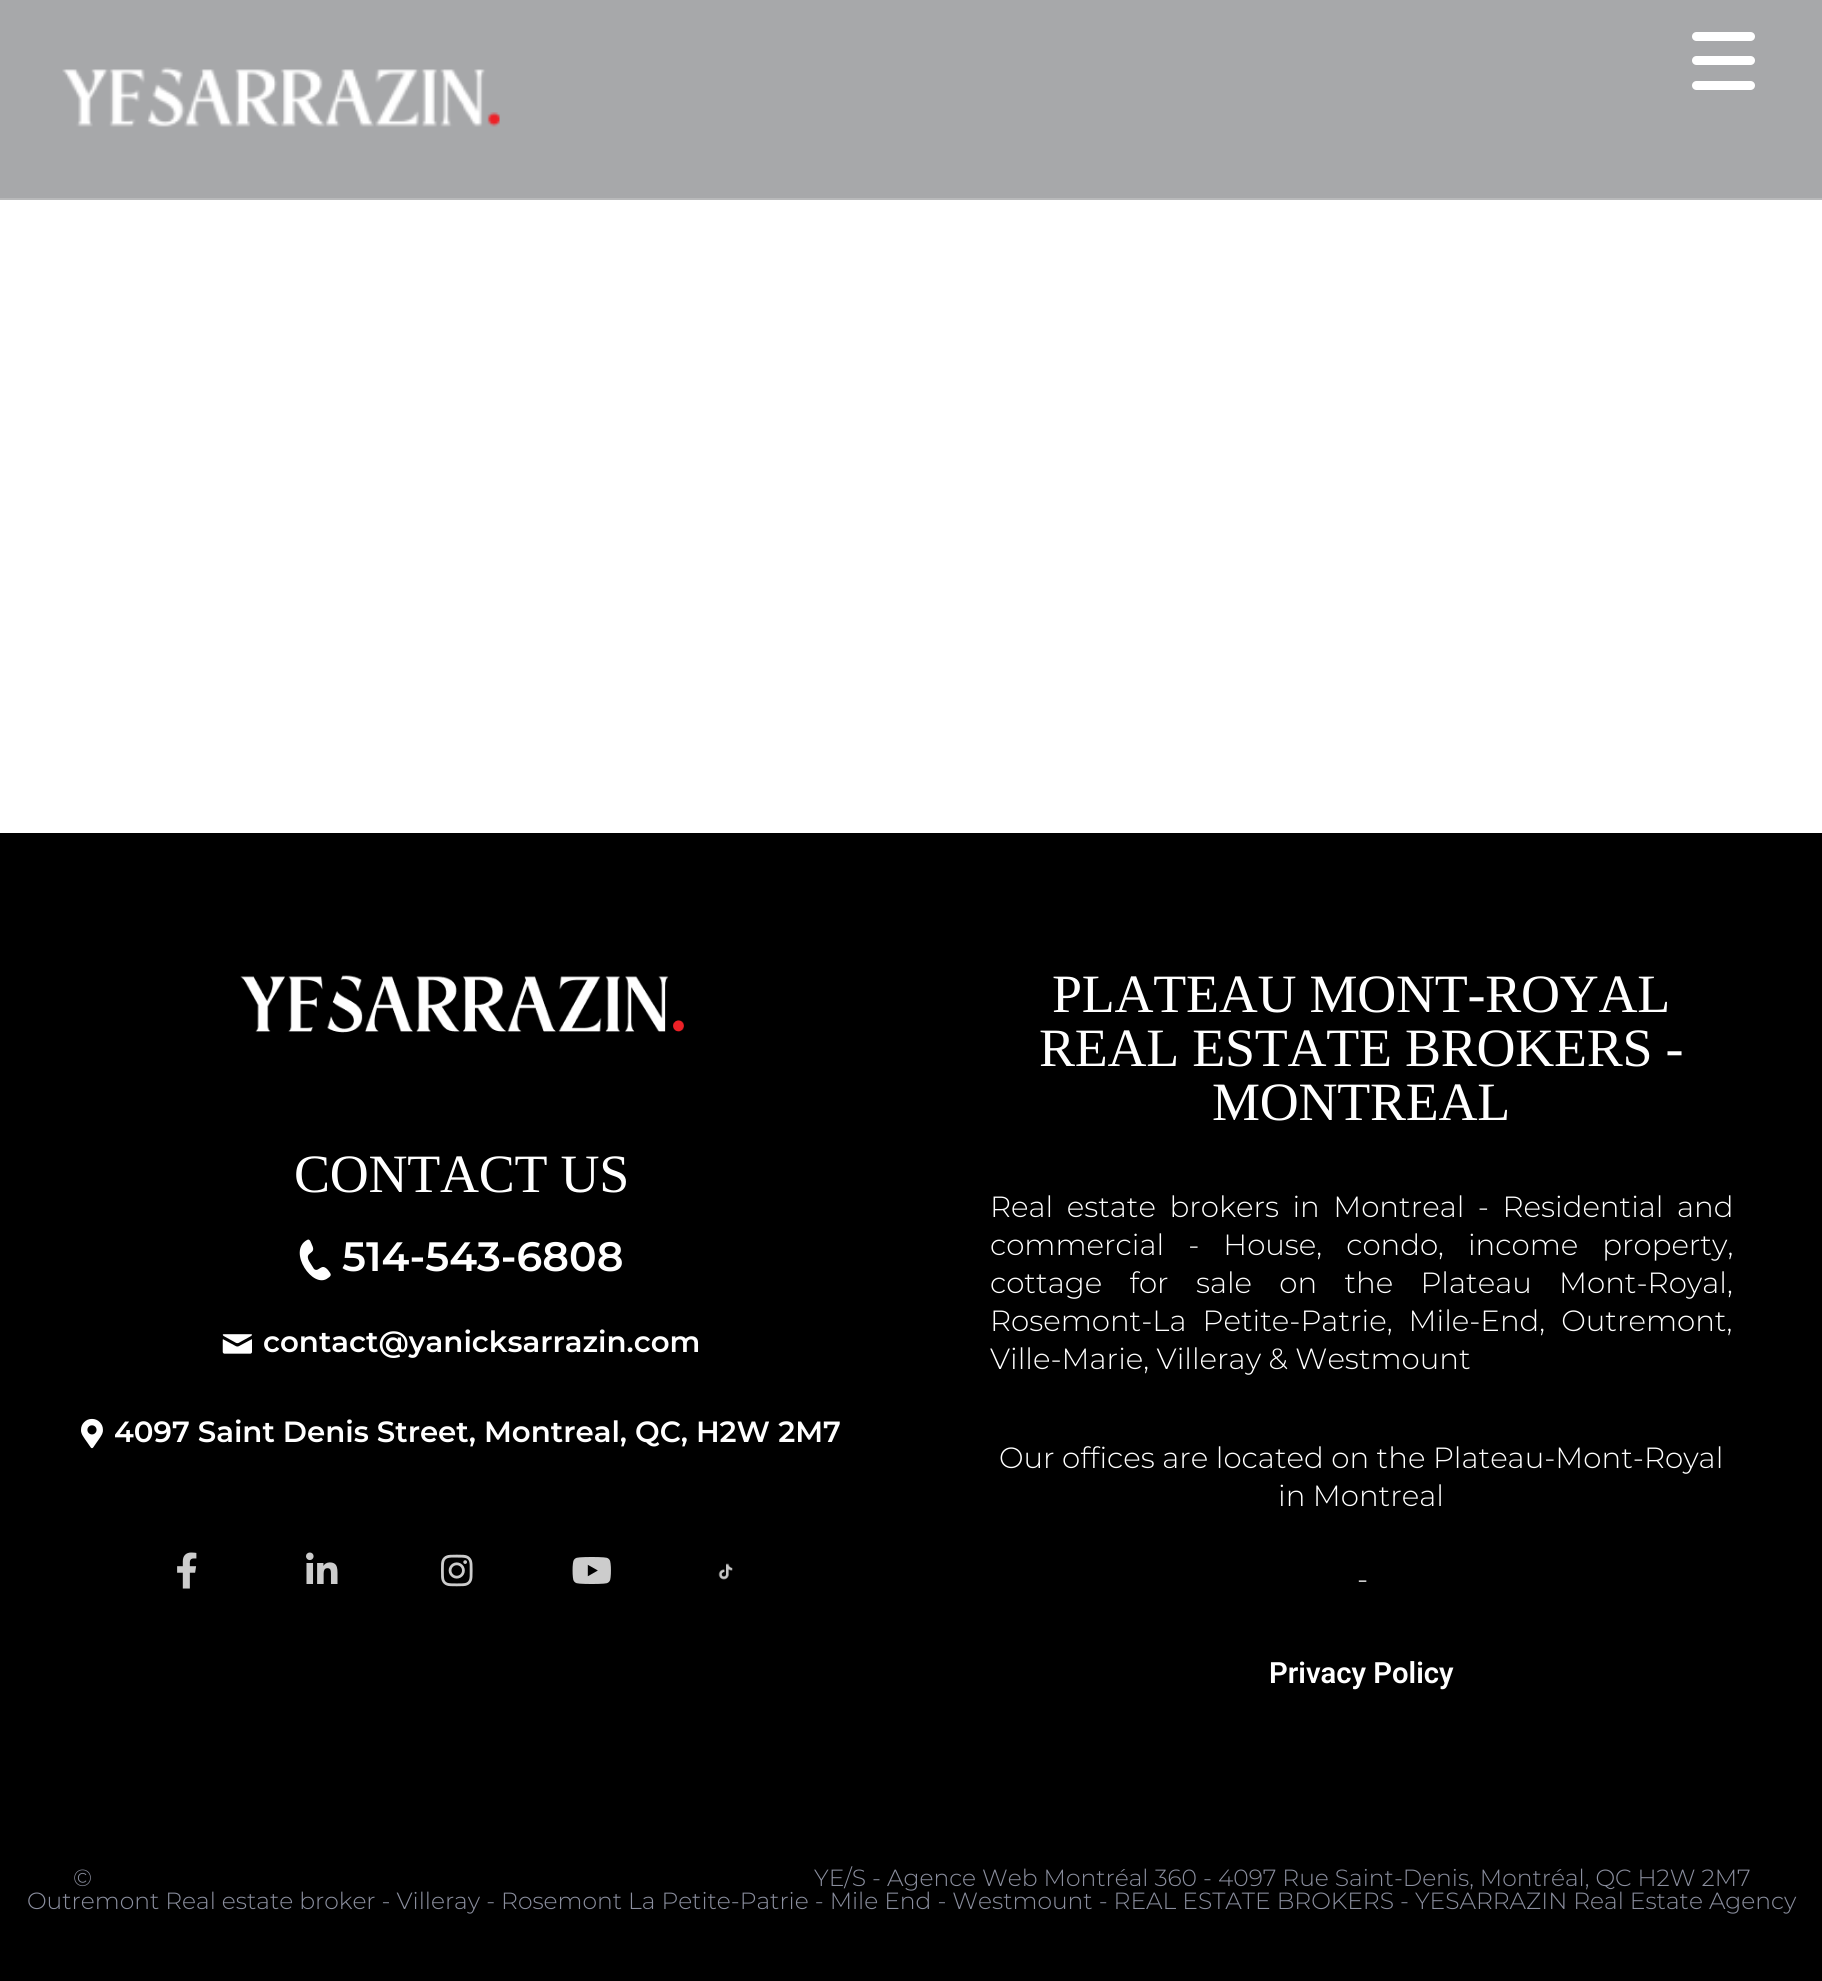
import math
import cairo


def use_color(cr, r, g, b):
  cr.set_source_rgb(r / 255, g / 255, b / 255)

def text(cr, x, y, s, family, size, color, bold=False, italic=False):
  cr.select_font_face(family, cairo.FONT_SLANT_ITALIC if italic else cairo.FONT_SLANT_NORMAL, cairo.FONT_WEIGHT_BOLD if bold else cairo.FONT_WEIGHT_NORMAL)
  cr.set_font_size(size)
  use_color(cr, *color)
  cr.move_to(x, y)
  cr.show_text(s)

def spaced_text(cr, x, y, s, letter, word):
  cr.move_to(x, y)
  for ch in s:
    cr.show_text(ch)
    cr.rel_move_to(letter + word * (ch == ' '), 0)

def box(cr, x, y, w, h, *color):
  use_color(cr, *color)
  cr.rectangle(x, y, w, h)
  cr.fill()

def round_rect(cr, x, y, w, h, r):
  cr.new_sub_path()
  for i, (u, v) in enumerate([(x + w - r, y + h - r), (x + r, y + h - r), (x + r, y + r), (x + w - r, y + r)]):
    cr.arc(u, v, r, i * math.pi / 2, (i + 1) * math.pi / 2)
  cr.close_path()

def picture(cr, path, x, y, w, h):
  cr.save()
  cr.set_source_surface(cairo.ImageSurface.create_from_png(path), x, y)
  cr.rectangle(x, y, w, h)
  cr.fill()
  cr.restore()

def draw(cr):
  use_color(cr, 255, 255, 255)
  cr.paint()
  box(cr, 0, 0, 1822, 198, 167, 168, 170)
  box(cr, 0, 198, 1822, 2, 184, 185, 186)
  use_color(cr, 255, 255, 255)
  round_rect(cr, 1692, 32, 63, 9, 4.5)
  cr.fill()
  round_rect(cr, 1692, 56, 63, 9, 4.5)
  cr.fill()
  round_rect(cr, 1692, 81, 63, 9, 4.5)
  cr.fill()
  picture(cr, "img_01.png", 62, 67, 438, 60)
  box(cr, 0, 833, 1822, 1148, 0, 0, 0)
  picture(cr, "img_02.png", 240, 975, 444, 58)
  use_color(cr, 255, 255, 255)
  cr.new_path()
  cr.move_to(328, 1270)
  cr.curve_to(321, 1262, 319, 1273, 314, 1269)
  cr.line_to(309, 1261)
  cr.curve_to(304, 1251, 317, 1255, 312, 1245)
  cr.curve_to(311, 1243, 310, 1238, 307, 1240)
  cr.curve_to(287, 1251, 313, 1290, 328, 1278)
  cr.curve_to(333, 1275, 330, 1273, 328, 1270)
  cr.close_path()
  cr.fill()
  picture(cr, "img_03.png", 222, 1334, 30, 20)
  picture(cr, "img_04.png", 81, 1418, 22, 31)
  picture(cr, "img_05.png", 177, 1552, 20, 37)
  picture(cr, "img_06.png", 306, 1552, 32, 32)
  picture(cr, "img_07.png", 441, 1554, 32, 33)
  picture(cr, "img_08.png", 572, 1557, 39, 27)
  picture(cr, "img_09.png", 718, 1563, 15, 17)
  cr.select_font_face("Tinos")
  cr.set_font_size(54)
  spaced_text(cr, 294, 1192, "CONTACT US", -0.25, 0)
  text(cr, 342, 1271, "514-543-6808", "Montserrat SemiBold", 41, (255, 255, 255))
  text(cr, 263, 1352, "contact@yanicksarrazin.com", "Montserrat SemiBold", 29.25, (255, 255, 255))
  text(cr, 114, 1442, "4097 Saint Denis Street, Montreal, QC, H2W 2M7", "Montserrat SemiBold", 29.25, (255, 255, 255))
  cr.select_font_face("Tinos")
  cr.set_font_size(54)
  spaced_text(cr, 1052, 1012, "PLATEAU MONT-ROYAL", -0.25, 0)
  spaced_text(cr, 1039, 1066, "REAL ESTATE BROKERS -", -0.25, 0)
  spaced_text(cr, 1212, 1120, "MONTREAL", -0.25, 0)
  cr.select_font_face("Montserrat Light")
  cr.set_font_size(29.25)
  spaced_text(cr, 990, 1217, "Real estate brokers in Montreal - Residential and", 0, 6)
  spaced_text(cr, 990, 1255, "commercial - House, condo, income property,", 0, 16.5)
  spaced_text(cr, 990, 1293, "cottage for sale on the Plateau Mont-Royal,", 0, 19.75)
  spaced_text(cr, 990, 1331, "Rosemont-La Petite-Patrie, Mile-End, Outremont,", 0, 8.5)
  text(cr, 990, 1369, "Ville-Marie, Villeray & Westmount", "Montserrat Light", 29.25, (255, 255, 255))
  text(cr, 999, 1468, "Our offices are located on the Plateau-Mont-Royal", "Montserrat Light", 29.25, (255, 255, 255))
  text(cr, 1278, 1506, "in Montreal", "Montserrat Light", 29.25, (255, 255, 255))
  text(cr, 1357, 1589, "-", "Montserrat Light", 29.25, (255, 255, 255))
  text(cr, 1269, 1683, "Privacy Policy", "Roboto SemiBold", 29.25, (255, 255, 255))
  text(cr, 73, 1886, "©", "Montserrat Light", 23.4, (139, 143, 159))
  text(cr, 814, 1886, "YE/S - Agence Web Montréal 360 - 4097 Rue Saint-Denis, Montréal, QC H2W 2M7", "Montserrat Light", 23.4, (139, 143, 159))
  text(cr, 27, 1909, "Outremont Real estate broker - Villeray - Rosemont La Petite-Patrie - Mile End - Westmount - REAL ESTATE BROKERS - YESARRAZIN Real Estate Agency", "Montserrat Light", 23.4, (139, 143, 159))


surface = cairo.ImageSurface(cairo.FORMAT_RGB24, 1822, 1981)
cr = cairo.Context(surface)
options = cairo.FontOptions()
options.set_hint_metrics(cairo.HINT_METRICS_OFF)
options.set_hint_style(cairo.HINT_STYLE_NONE)
cr.set_font_options(options)
cr.set_miter_limit(4)
draw(cr)
surface.write_to_png("out.png")
